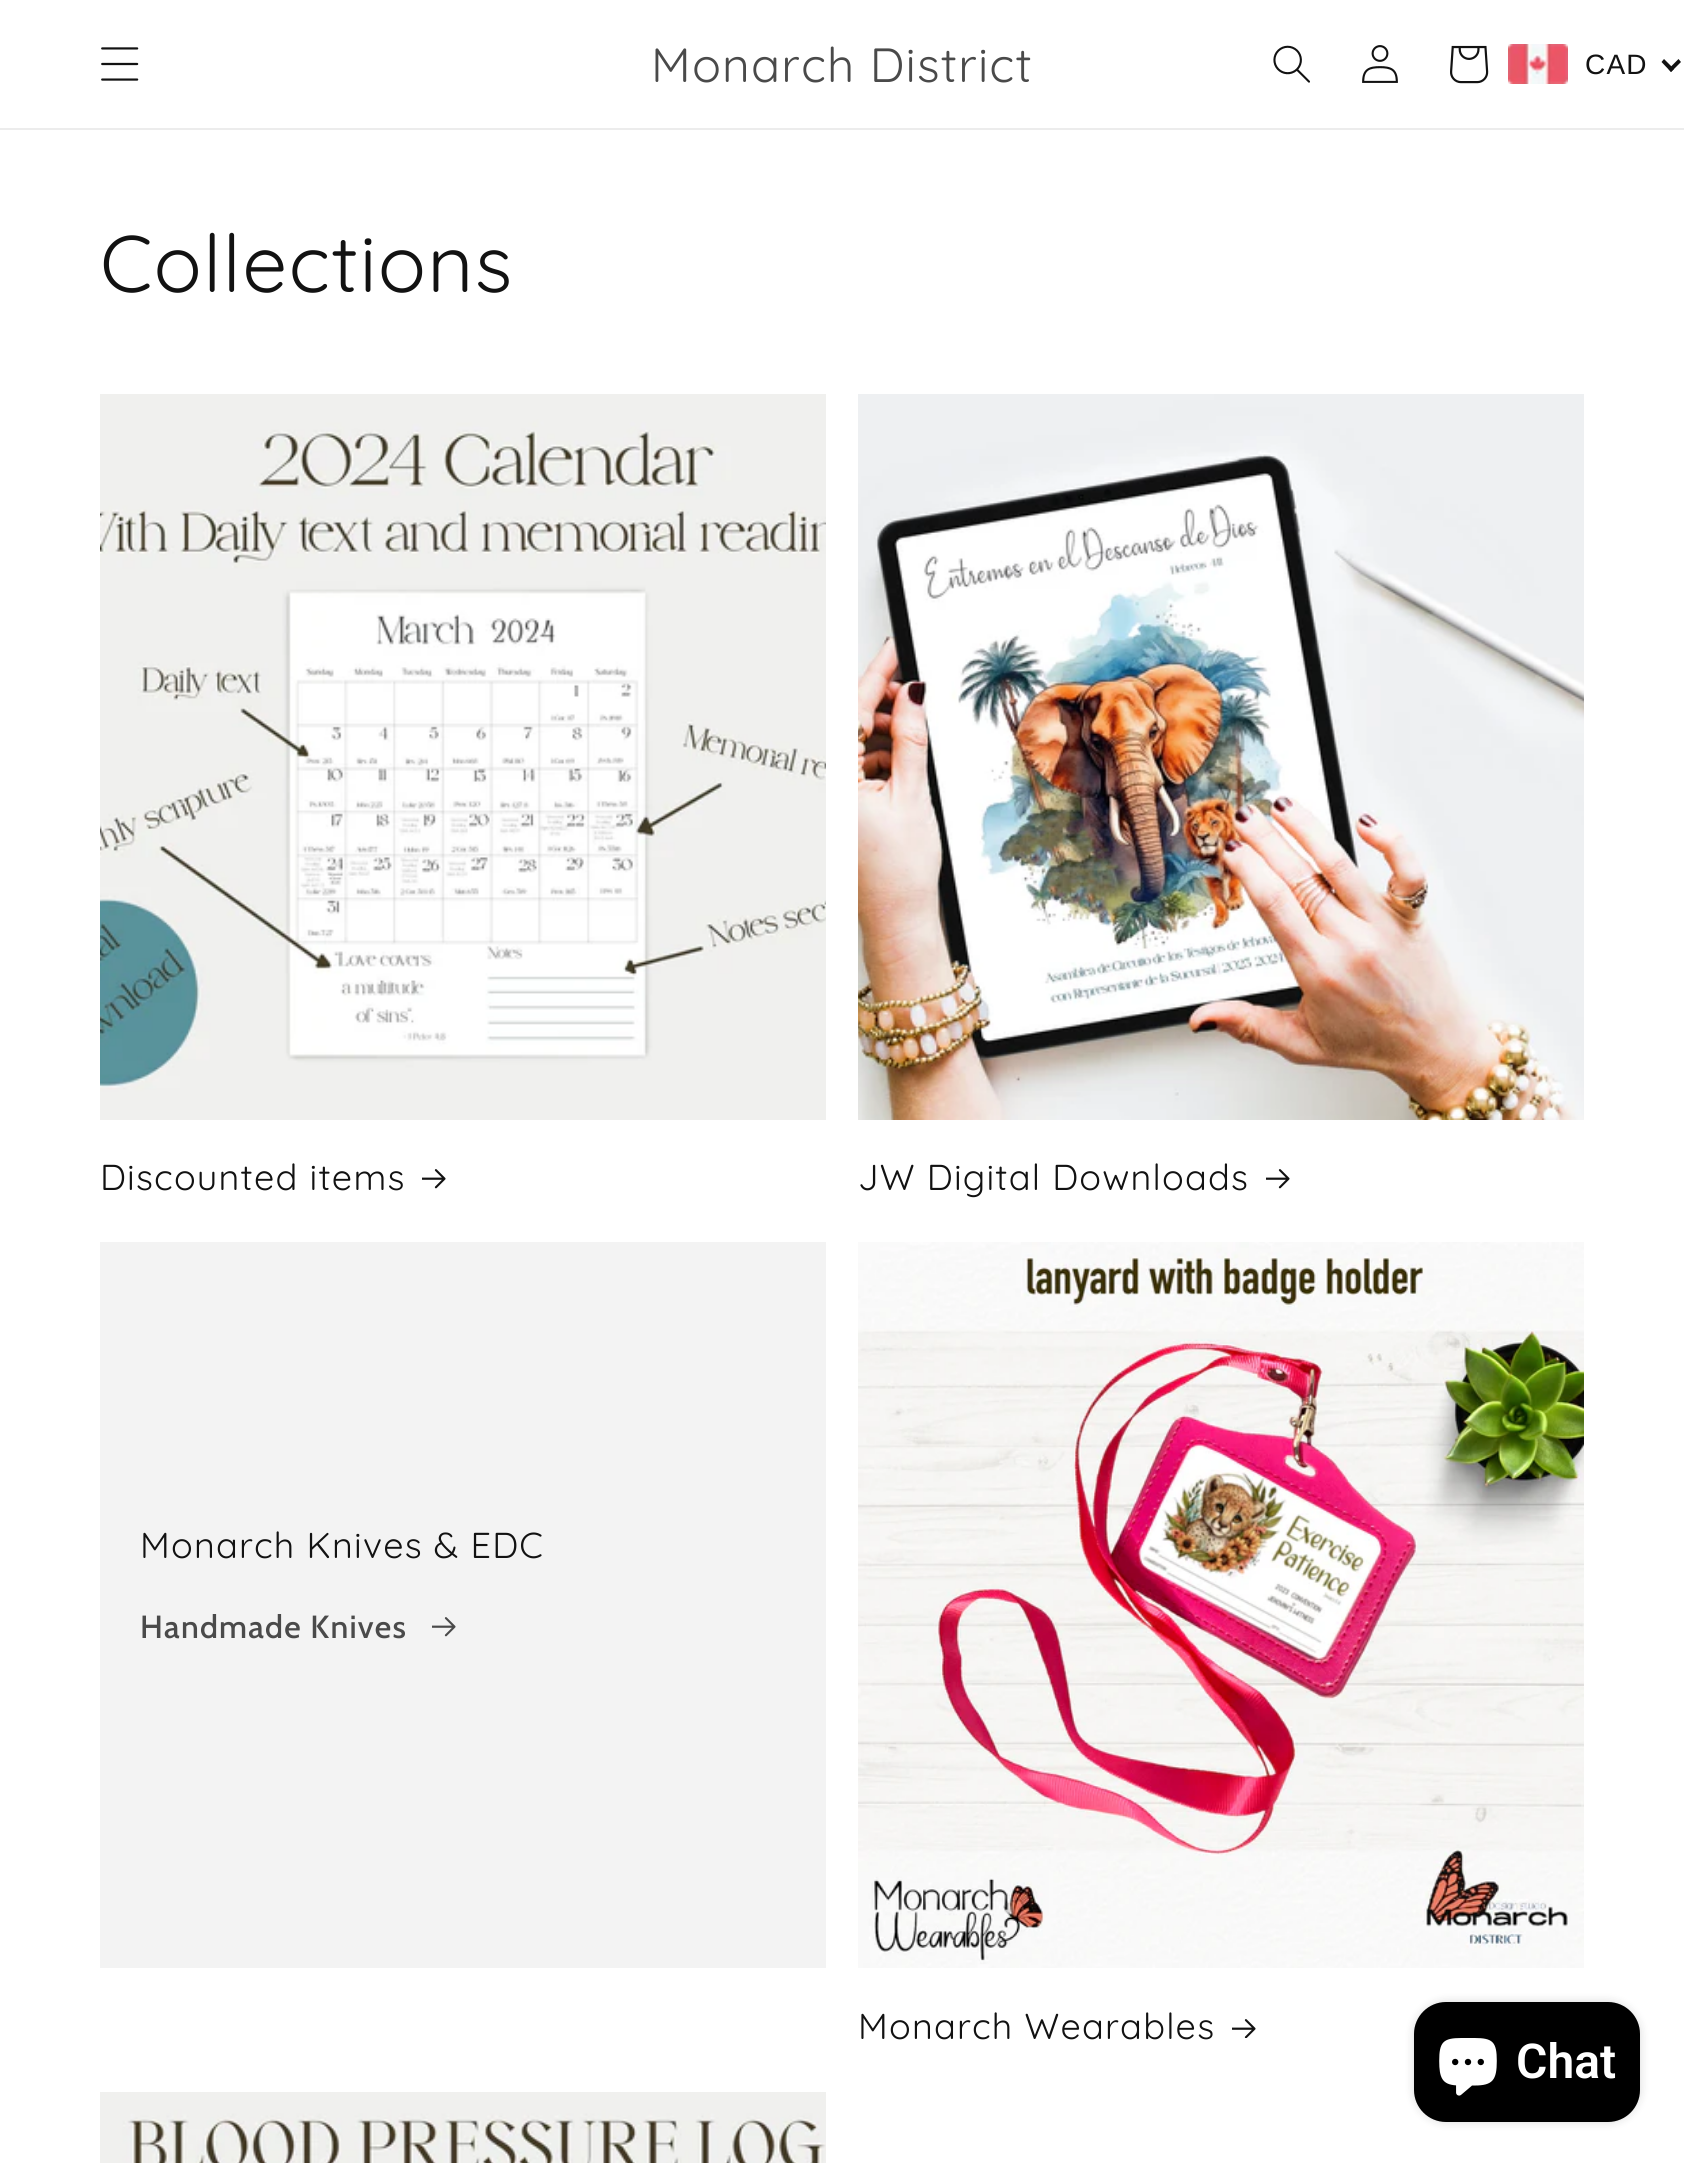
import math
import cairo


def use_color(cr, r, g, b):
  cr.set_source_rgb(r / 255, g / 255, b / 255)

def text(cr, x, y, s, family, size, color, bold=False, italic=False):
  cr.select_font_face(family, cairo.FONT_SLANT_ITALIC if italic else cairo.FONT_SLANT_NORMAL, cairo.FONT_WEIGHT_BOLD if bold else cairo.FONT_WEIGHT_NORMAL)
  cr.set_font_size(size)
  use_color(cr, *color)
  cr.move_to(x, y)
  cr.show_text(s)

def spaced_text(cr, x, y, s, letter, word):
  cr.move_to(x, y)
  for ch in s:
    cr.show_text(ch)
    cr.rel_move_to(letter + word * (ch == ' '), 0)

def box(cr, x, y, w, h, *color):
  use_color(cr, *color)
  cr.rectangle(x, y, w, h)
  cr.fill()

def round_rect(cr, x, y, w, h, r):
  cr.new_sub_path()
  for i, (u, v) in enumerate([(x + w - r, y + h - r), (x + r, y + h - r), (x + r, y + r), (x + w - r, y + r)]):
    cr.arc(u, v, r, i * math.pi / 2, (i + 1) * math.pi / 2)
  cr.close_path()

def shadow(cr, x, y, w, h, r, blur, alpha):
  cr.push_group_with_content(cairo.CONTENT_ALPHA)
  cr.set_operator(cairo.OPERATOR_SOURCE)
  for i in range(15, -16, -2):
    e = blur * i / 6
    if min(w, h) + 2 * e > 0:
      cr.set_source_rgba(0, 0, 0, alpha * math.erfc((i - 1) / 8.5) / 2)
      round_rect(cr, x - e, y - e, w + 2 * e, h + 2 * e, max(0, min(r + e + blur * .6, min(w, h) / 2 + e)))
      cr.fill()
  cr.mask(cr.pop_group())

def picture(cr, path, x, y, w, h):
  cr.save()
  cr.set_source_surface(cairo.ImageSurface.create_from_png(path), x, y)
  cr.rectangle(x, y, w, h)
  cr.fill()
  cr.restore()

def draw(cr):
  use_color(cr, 255, 255, 255)
  cr.paint()
  box(cr, 0, 128, 1684, 2, 236, 236, 236)
  picture(cr, "img_01.png", 101, 47, 38, 34)
  picture(cr, "img_02.png", 1273, 45, 37, 38)
  picture(cr, "img_03.png", 1362, 45, 36, 38)
  picture(cr, "img_04.png", 1450, 45, 39, 39)
  picture(cr, "img_05.png", 1508, 44, 60, 40)
  use_color(cr, 18, 18, 18)
  cr.new_path()
  cr.move_to(1678.5, 59)
  cr.line_to(1681, 62)
  cr.line_to(1671, 72)
  cr.line_to(1668.5, 69)
  cr.close_path()
  cr.fill()
  cr.new_path()
  cr.move_to(1664, 59)
  cr.line_to(1674, 69)
  cr.line_to(1671, 72)
  cr.line_to(1661.5, 62)
  cr.close_path()
  cr.fill()
  picture(cr, "img_06.png", 100, 394, 726, 726)
  picture(cr, "img_07.png", 422, 1169, 24, 20)
  picture(cr, "img_08.png", 858, 394, 726, 726)
  picture(cr, "img_07.png", 1266, 1169, 24, 20)
  box(cr, 100, 1242, 726, 726, 243, 243, 243)
  picture(cr, "img_09.png", 432, 1617, 24, 20)
  picture(cr, "img_10.png", 858, 1242, 726, 726)
  picture(cr, "img_11.png", 1232, 2019, 24, 19)
  picture(cr, "img_12.png", 100, 2092, 726, 71)
  use_color(cr, 0, 0, 0)
  shadow(cr, 1414, 2002, 226, 120, 32, 5, 0.15)
  use_color(cr, 0, 0, 0)
  round_rect(cr, 1414, 2002, 226, 120, 32)
  cr.fill()
  picture(cr, "img_13.png", 1439, 2038, 58, 58)
  cr.select_font_face("Quicksand")
  cr.set_font_size(48)
  use_color(cr, 74, 74, 74)
  spaced_text(cr, 651, 82, "Monarch District", 1.2, 0)
  cr.select_font_face("Liberation Sans")
  cr.set_font_size(28)
  use_color(cr, 18, 18, 18)
  spaced_text(cr, 1585, 74, "CAD", 1.2, 0)
  cr.select_font_face("Quicksand")
  cr.set_font_size(80)
  spaced_text(cr, 100, 292, "Collections", 1.2, 0)
  cr.set_font_size(36)
  spaced_text(cr, 100, 1190, "Discounted items", 1.2, 0)
  spaced_text(cr, 858, 1190, "JW Digital Downloads", 1.2, 0)
  spaced_text(cr, 140, 1558, "Monarch Knives & EDC", 1.2, 0)
  cr.select_font_face("Cabin Medium")
  cr.set_font_size(32)
  use_color(cr, 74, 74, 74)
  spaced_text(cr, 140, 1638, "Handmade Knives", 1.2, 0)
  cr.select_font_face("Quicksand")
  cr.set_font_size(36)
  use_color(cr, 18, 18, 18)
  spaced_text(cr, 858, 2039, "Monarch Wearables", 1.2, 0)
  text(cr, 1516, 2078, "Chat", "Roboto SemiBold", 48, (255, 255, 255))


surface = cairo.ImageSurface(cairo.FORMAT_RGB24, 1684, 2163)
cr = cairo.Context(surface)
options = cairo.FontOptions()
options.set_hint_metrics(cairo.HINT_METRICS_OFF)
options.set_hint_style(cairo.HINT_STYLE_NONE)
cr.set_font_options(options)
cr.set_miter_limit(4)
draw(cr)
surface.write_to_png("out.png")
